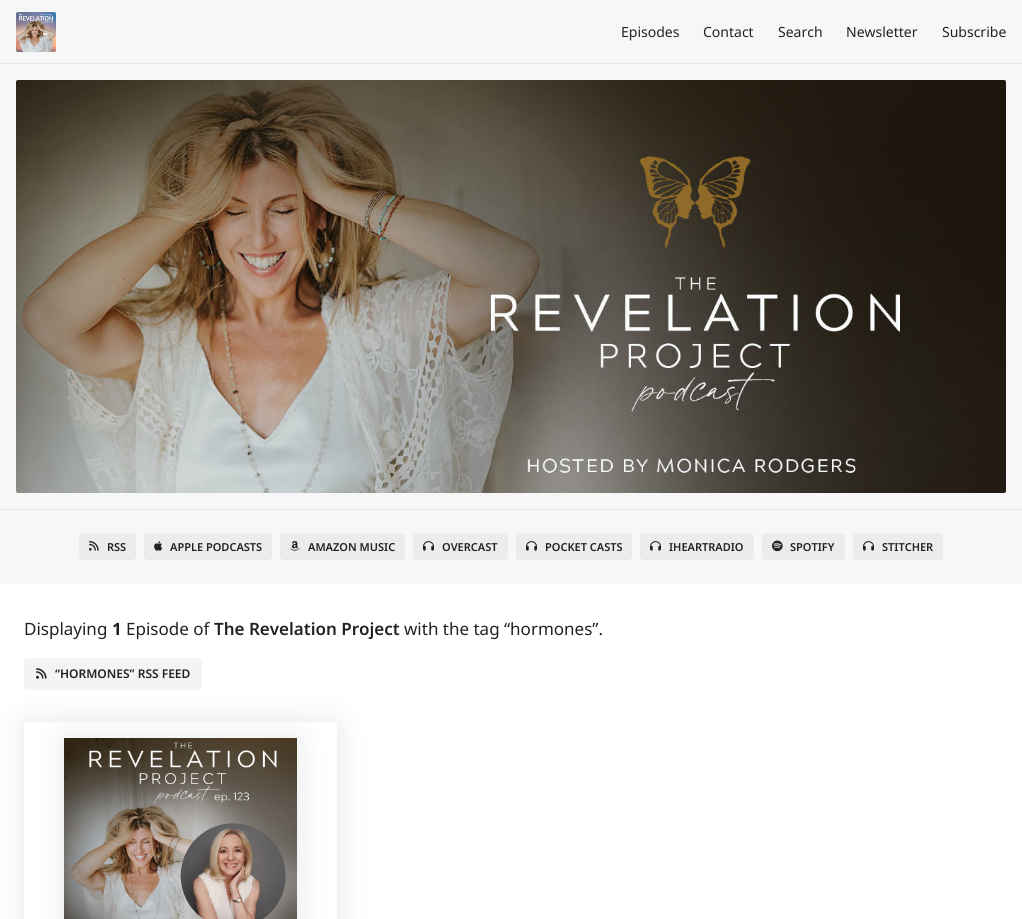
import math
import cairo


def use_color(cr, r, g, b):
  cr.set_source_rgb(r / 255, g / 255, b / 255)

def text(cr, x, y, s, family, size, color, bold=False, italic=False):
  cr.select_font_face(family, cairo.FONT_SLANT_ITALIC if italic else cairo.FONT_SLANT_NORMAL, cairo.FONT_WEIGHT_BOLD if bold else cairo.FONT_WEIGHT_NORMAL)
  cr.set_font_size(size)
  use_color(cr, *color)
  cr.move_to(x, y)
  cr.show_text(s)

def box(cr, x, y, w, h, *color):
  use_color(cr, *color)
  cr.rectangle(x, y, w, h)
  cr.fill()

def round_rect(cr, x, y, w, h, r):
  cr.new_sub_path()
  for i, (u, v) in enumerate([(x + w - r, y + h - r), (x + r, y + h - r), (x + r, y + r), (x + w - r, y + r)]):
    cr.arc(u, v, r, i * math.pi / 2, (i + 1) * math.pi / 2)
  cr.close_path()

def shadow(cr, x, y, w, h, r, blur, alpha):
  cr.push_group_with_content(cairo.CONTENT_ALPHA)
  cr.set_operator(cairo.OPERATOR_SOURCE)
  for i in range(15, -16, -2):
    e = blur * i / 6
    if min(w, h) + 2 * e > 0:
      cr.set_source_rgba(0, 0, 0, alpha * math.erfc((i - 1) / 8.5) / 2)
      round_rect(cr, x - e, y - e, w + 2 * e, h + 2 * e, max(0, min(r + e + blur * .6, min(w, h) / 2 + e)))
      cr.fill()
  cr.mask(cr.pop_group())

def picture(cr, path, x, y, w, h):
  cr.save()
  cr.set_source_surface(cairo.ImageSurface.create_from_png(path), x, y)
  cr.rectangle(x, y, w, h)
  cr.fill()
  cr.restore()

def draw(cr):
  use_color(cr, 255, 255, 255)
  cr.paint()
  box(cr, 0, 0, 1022, 63, 247, 247, 247)
  box(cr, 0, 63, 1022, 1, 230, 230, 230)
  box(cr, 16, 12, 40, 40, 235, 235, 235)
  picture(cr, "img_01.png", 16, 12, 40, 40)
  box(cr, 0, 64, 1022, 445, 247, 247, 247)
  picture(cr, "img_02.png", 16, 80, 990, 413)
  box(cr, 0, 510, 1022, 74, 247, 247, 247)
  box(cr, 0, 509, 1022, 1, 230, 230, 230)
  use_color(cr, 236, 236, 236)
  round_rect(cr, 79, 533, 57, 27, 4)
  cr.fill()
  picture(cr, "img_03.png", 89, 541, 10, 10)
  round_rect(cr, 144, 533, 128, 27, 4)
  cr.fill()
  picture(cr, "img_04.png", 154, 541, 9, 10)
  round_rect(cr, 280, 533, 125, 27, 4)
  cr.fill()
  picture(cr, "img_05.png", 290, 541, 10, 10)
  round_rect(cr, 413, 533, 95, 27, 4)
  cr.fill()
  picture(cr, "img_06.png", 423, 541, 11, 10)
  round_rect(cr, 516, 533, 116, 27, 4)
  cr.fill()
  picture(cr, "img_06.png", 526, 541, 11, 10)
  round_rect(cr, 640, 533, 114, 27, 4)
  cr.fill()
  picture(cr, "img_06.png", 650, 541, 11, 10)
  round_rect(cr, 762, 533, 83, 27, 4)
  cr.fill()
  picture(cr, "img_07.png", 772, 540, 11, 12)
  round_rect(cr, 853, 533, 90, 27, 4)
  cr.fill()
  picture(cr, "img_06.png", 863, 541, 11, 10)
  use_color(cr, 244, 244, 244)
  round_rect(cr, 24, 658, 178, 32, 4)
  cr.fill()
  picture(cr, "img_08.png", 36, 668, 11, 11)
  cr.save()
  cr.set_fill_rule(cairo.FILL_RULE_EVEN_ODD)
  cr.new_path()
  cr.move_to(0, 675)
  cr.line_to(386, 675)
  cr.line_to(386, 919)
  cr.line_to(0, 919)
  cr.close_path()
  cr.move_to(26, 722)
  cr.line_to(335, 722)
  cr.curve_to(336, 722, 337, 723, 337, 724)
  cr.line_to(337, 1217)
  cr.curve_to(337, 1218, 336, 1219, 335, 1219)
  cr.line_to(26, 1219)
  cr.curve_to(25, 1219, 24, 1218, 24, 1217)
  cr.line_to(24, 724)
  cr.curve_to(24, 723, 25, 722, 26, 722)
  cr.close_path()
  cr.clip()
  use_color(cr, 0, 0, 0)
  shadow(cr, 24, 724, 313, 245, 2, 16, 0.1)
  cr.restore()
  use_color(cr, 0, 0, 0)
  shadow(cr, 64, 740, 233, 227, 0, 16, 0.1)
  picture(cr, "img_09.png", 64, 738, 233, 181)
  text(cr, 621, 37, "Episodes", "Noto Sans", 14, (34, 34, 34))
  text(cr, 703, 37, "Contact", "Noto Sans", 14, (34, 34, 34))
  text(cr, 778, 37, "Search", "Noto Sans", 14, (34, 34, 34))
  text(cr, 846, 37, "Newsletter", "Noto Sans", 14, (34, 34, 34))
  text(cr, 942, 37, "Subscribe", "Noto Sans", 14, (34, 34, 34))
  text(cr, 107, 551, "RSS", "Noto Sans SemiBold", 11, (34, 34, 34))
  text(cr, 170, 551, "APPLE PODCASTS", "Noto Sans SemiBold", 11, (34, 34, 34))
  text(cr, 308, 551, "AMAZON MUSIC", "Noto Sans SemiBold", 11, (34, 34, 34))
  text(cr, 442, 551, "OVERCAST", "Noto Sans SemiBold", 11, (34, 34, 34))
  text(cr, 545, 551, "POCKET CASTS", "Noto Sans SemiBold", 11, (34, 34, 34))
  text(cr, 669, 551, "IHEARTRADIO", "Noto Sans SemiBold", 11, (34, 34, 34))
  text(cr, 790, 551, "SPOTIFY", "Noto Sans SemiBold", 11, (34, 34, 34))
  text(cr, 882, 551, "STITCHER", "Noto Sans SemiBold", 11, (34, 34, 34))
  text(cr, 24, 635, "Displaying", "Noto Sans", 17, (34, 34, 34))
  text(cr, 112, 635, "1", "Noto Sans", 17, (34, 34, 34), bold=True)
  text(cr, 126, 635, "Episode of", "Noto Sans", 17, (34, 34, 34))
  text(cr, 214, 635, "The Revelation Project", "Noto Sans SemiBold", 17, (34, 34, 34))
  text(cr, 404, 635, "with the tag “hormones”.", "Noto Sans", 17, (34, 34, 34))
  text(cr, 55, 678, "“HORMONES” RSS FEED", "Noto Sans SemiBold", 12, (34, 34, 34))


surface = cairo.ImageSurface(cairo.FORMAT_RGB24, 1022, 919)
cr = cairo.Context(surface)
options = cairo.FontOptions()
options.set_hint_metrics(cairo.HINT_METRICS_OFF)
options.set_hint_style(cairo.HINT_STYLE_NONE)
cr.set_font_options(options)
cr.set_miter_limit(4)
draw(cr)
surface.write_to_png("out.png")
